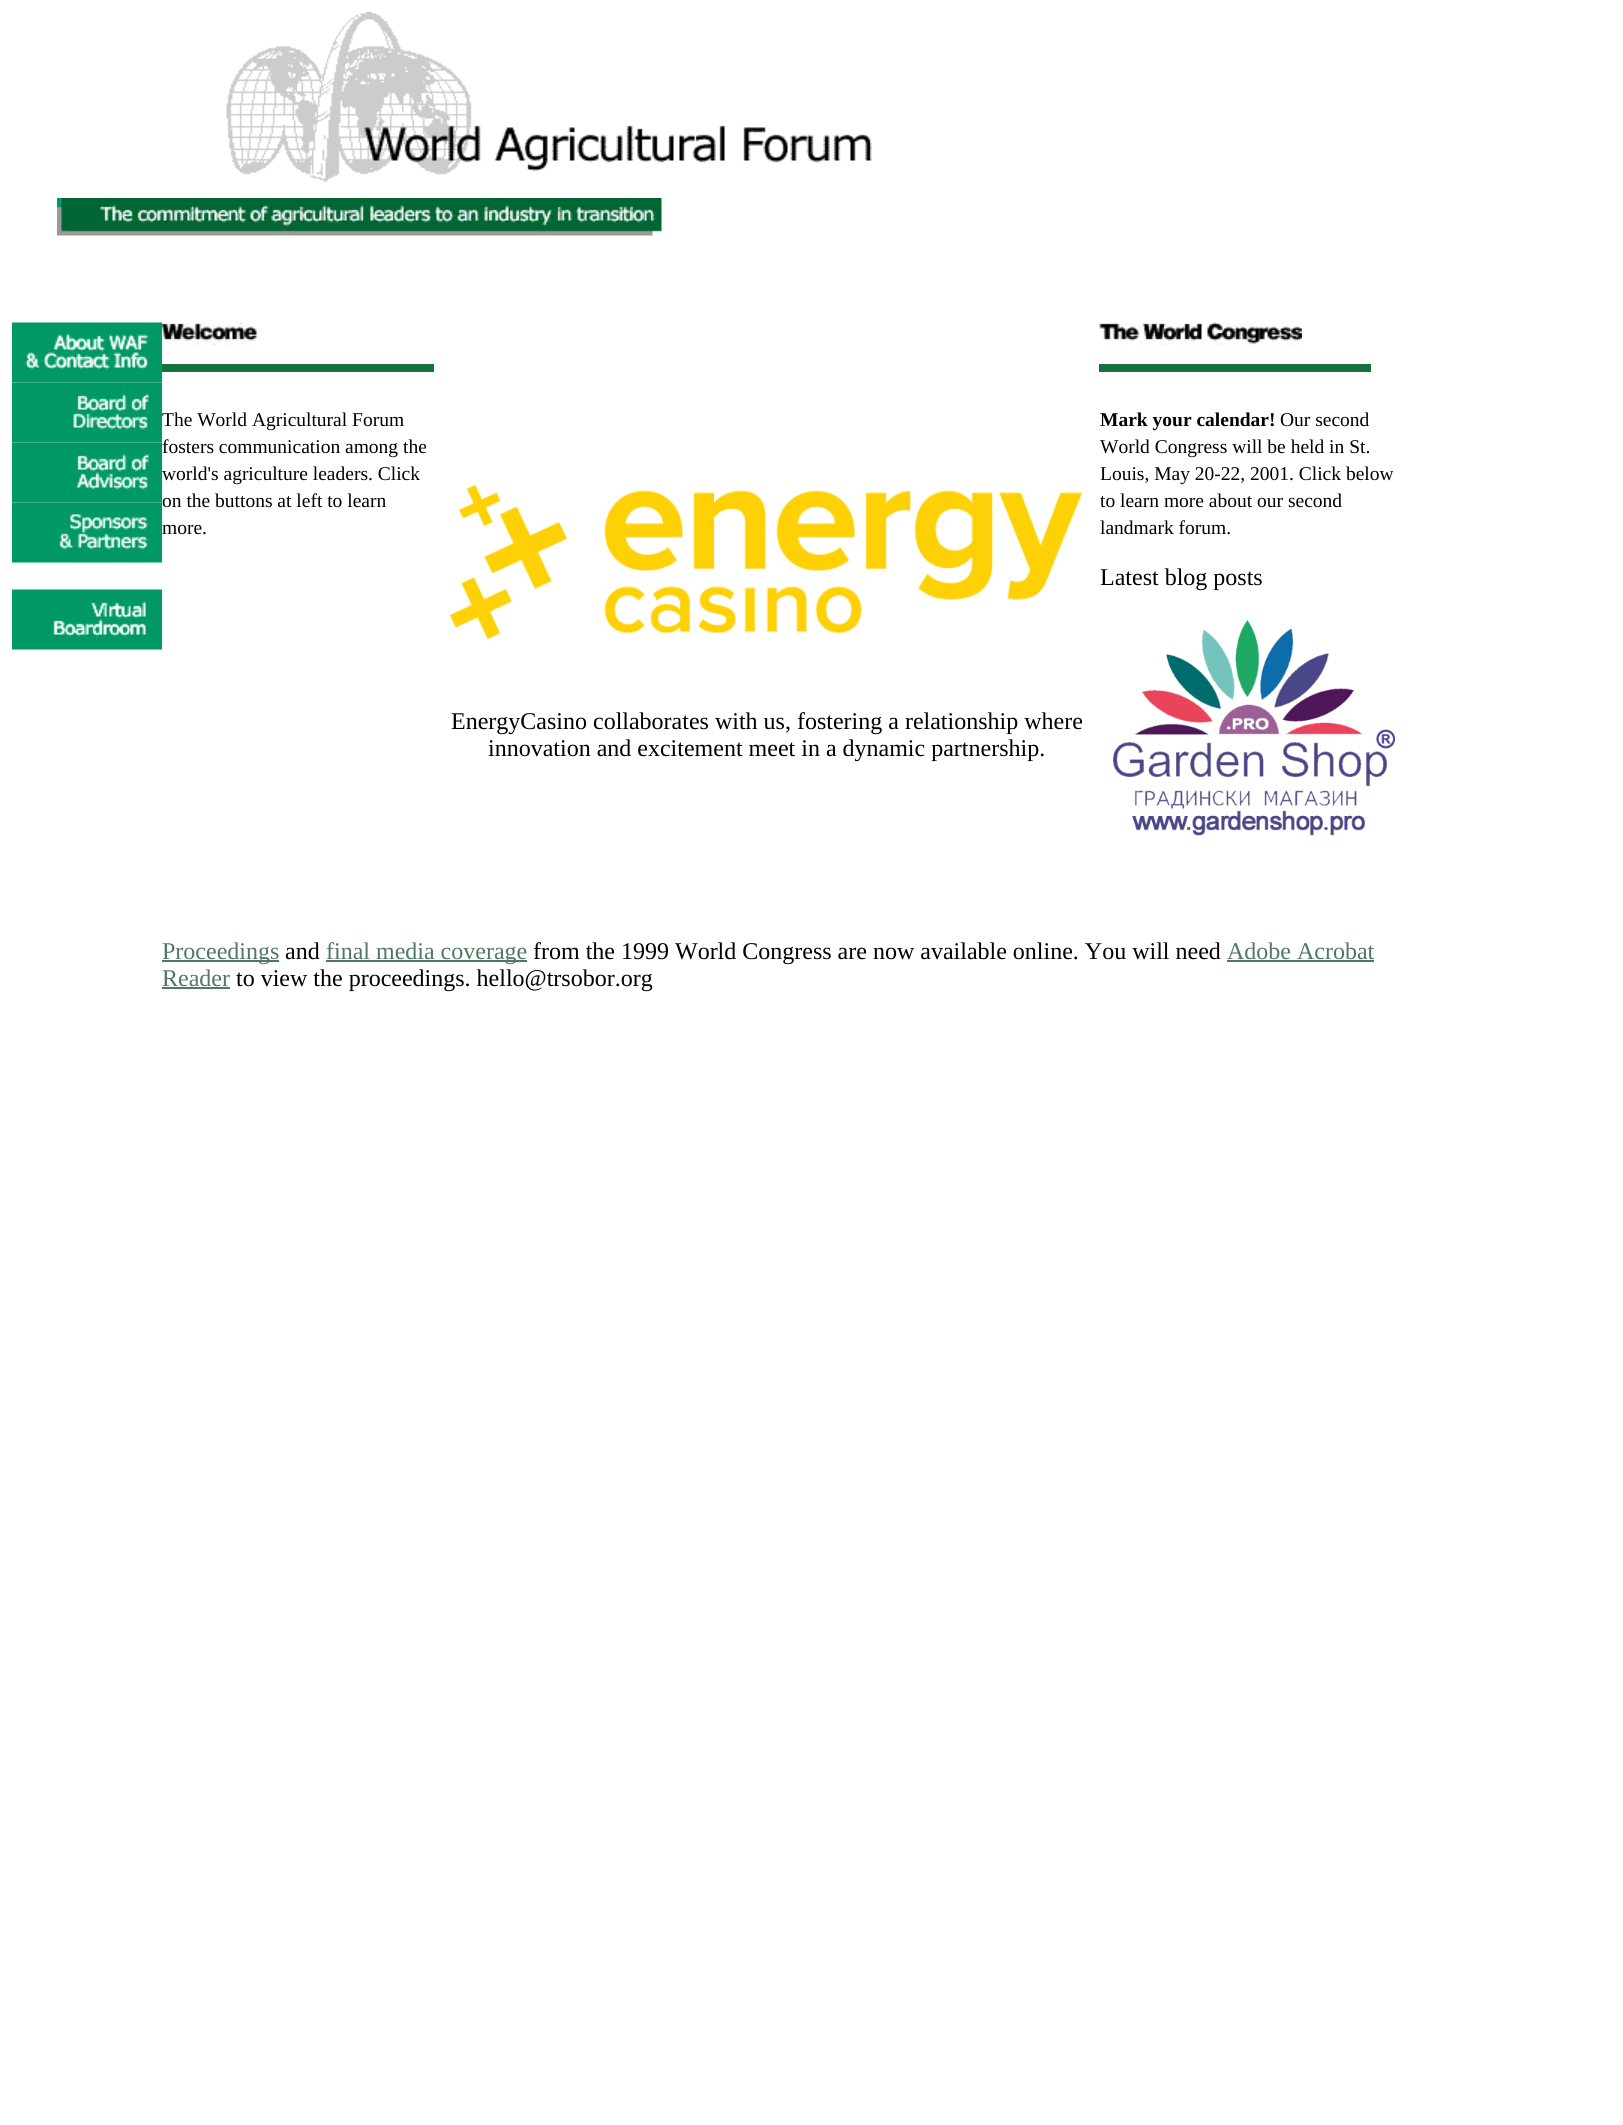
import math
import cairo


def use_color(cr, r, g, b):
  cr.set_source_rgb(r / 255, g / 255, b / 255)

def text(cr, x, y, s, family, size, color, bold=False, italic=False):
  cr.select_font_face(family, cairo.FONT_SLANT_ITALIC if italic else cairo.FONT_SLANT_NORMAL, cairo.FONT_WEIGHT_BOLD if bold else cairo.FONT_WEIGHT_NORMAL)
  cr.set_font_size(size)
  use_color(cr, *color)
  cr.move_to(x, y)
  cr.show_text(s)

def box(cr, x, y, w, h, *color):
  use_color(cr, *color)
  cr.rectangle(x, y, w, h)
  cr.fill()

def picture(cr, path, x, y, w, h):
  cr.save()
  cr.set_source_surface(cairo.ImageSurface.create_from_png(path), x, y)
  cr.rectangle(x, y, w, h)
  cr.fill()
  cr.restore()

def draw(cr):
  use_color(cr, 255, 255, 255)
  cr.paint()
  picture(cr, "img_01.png", 226, 12, 646, 170)
  picture(cr, "img_02.png", 57, 198, 605, 38)
  picture(cr, "img_03.png", 12, 322, 150, 61)
  picture(cr, "img_04.png", 12, 382, 150, 61)
  picture(cr, "img_05.png", 12, 442, 150, 61)
  picture(cr, "img_06.png", 12, 502, 150, 61)
  picture(cr, "img_07.png", 12, 589, 150, 61)
  picture(cr, "img_08.png", 162, 322, 95, 23)
  box(cr, 162, 364, 272, 8, 21, 115, 63)
  picture(cr, "img_09.png", 1099, 322, 203, 23)
  box(cr, 1099, 364, 272, 8, 21, 115, 63)
  picture(cr, "img_10.png", 1113, 620, 282, 216)
  picture(cr, "img_11.png", 449, 484, 634, 156)
  box(cr, 162, 960, 117, 2, 80, 119, 98)
  box(cr, 326, 960, 201, 2, 80, 119, 98)
  box(cr, 1227, 960, 147, 2, 80, 119, 98)
  box(cr, 162, 987, 68, 2, 80, 119, 98)
  text(cr, 162, 426, "The World Agricultural Forum", "Liberation Serif", 19.5, (0, 0, 0))
  text(cr, 162, 453, "fosters communication among the", "Liberation Serif", 19.5, (0, 0, 0))
  text(cr, 162, 480, "world's agriculture leaders. Click", "Liberation Serif", 19.5, (0, 0, 0))
  text(cr, 162, 507, "on the buttons at left to learn", "Liberation Serif", 19.5, (0, 0, 0))
  text(cr, 162, 534, "more.", "Liberation Serif", 19.5, (0, 0, 0))
  text(cr, 1100, 426, "Mark your calendar!", "Liberation Serif", 19.5, (0, 0, 0), bold=True)
  text(cr, 1280, 426, "Our second", "Liberation Serif", 19.5, (0, 0, 0))
  text(cr, 1100, 453, "World Congress will be held in St.", "Liberation Serif", 19.5, (0, 0, 0))
  text(cr, 1100, 480, "Louis, May 20-22, 2001. Click below", "Liberation Serif", 19.5, (0, 0, 0))
  text(cr, 1100, 507, "to learn more about our second", "Liberation Serif", 19.5, (0, 0, 0))
  text(cr, 1100, 534, "landmark forum.", "Liberation Serif", 19.5, (0, 0, 0))
  text(cr, 1100, 585, "Latest blog posts", "Liberation Serif", 24, (0, 0, 0))
  text(cr, 451, 729, "EnergyCasino collaborates with us, fostering a relationship where", "Liberation Serif", 24, (0, 0, 0))
  text(cr, 488, 756, "innovation and excitement meet in a dynamic partnership.", "Liberation Serif", 24, (0, 0, 0))
  text(cr, 162, 959, "Proceedings", "Liberation Serif", 24, (80, 119, 98))
  text(cr, 285, 959, "and", "Liberation Serif", 24, (0, 0, 0))
  text(cr, 326, 959, "final media coverage", "Liberation Serif", 24, (80, 119, 98))
  text(cr, 533, 959, "from the 1999 World Congress are now available online. You will need", "Liberation Serif", 24, (0, 0, 0))
  text(cr, 1227, 959, "Adobe Acrobat", "Liberation Serif", 24, (80, 119, 98))
  text(cr, 162, 986, "Reader", "Liberation Serif", 24, (80, 119, 98))
  text(cr, 236, 986, "to view the proceedings. hello@trsobor.org", "Liberation Serif", 24, (0, 0, 0))


surface = cairo.ImageSurface(cairo.FORMAT_RGB24, 1623, 2125)
cr = cairo.Context(surface)
options = cairo.FontOptions()
options.set_hint_metrics(cairo.HINT_METRICS_OFF)
options.set_hint_style(cairo.HINT_STYLE_NONE)
cr.set_font_options(options)
cr.set_miter_limit(4)
draw(cr)
surface.write_to_png("out.png")
